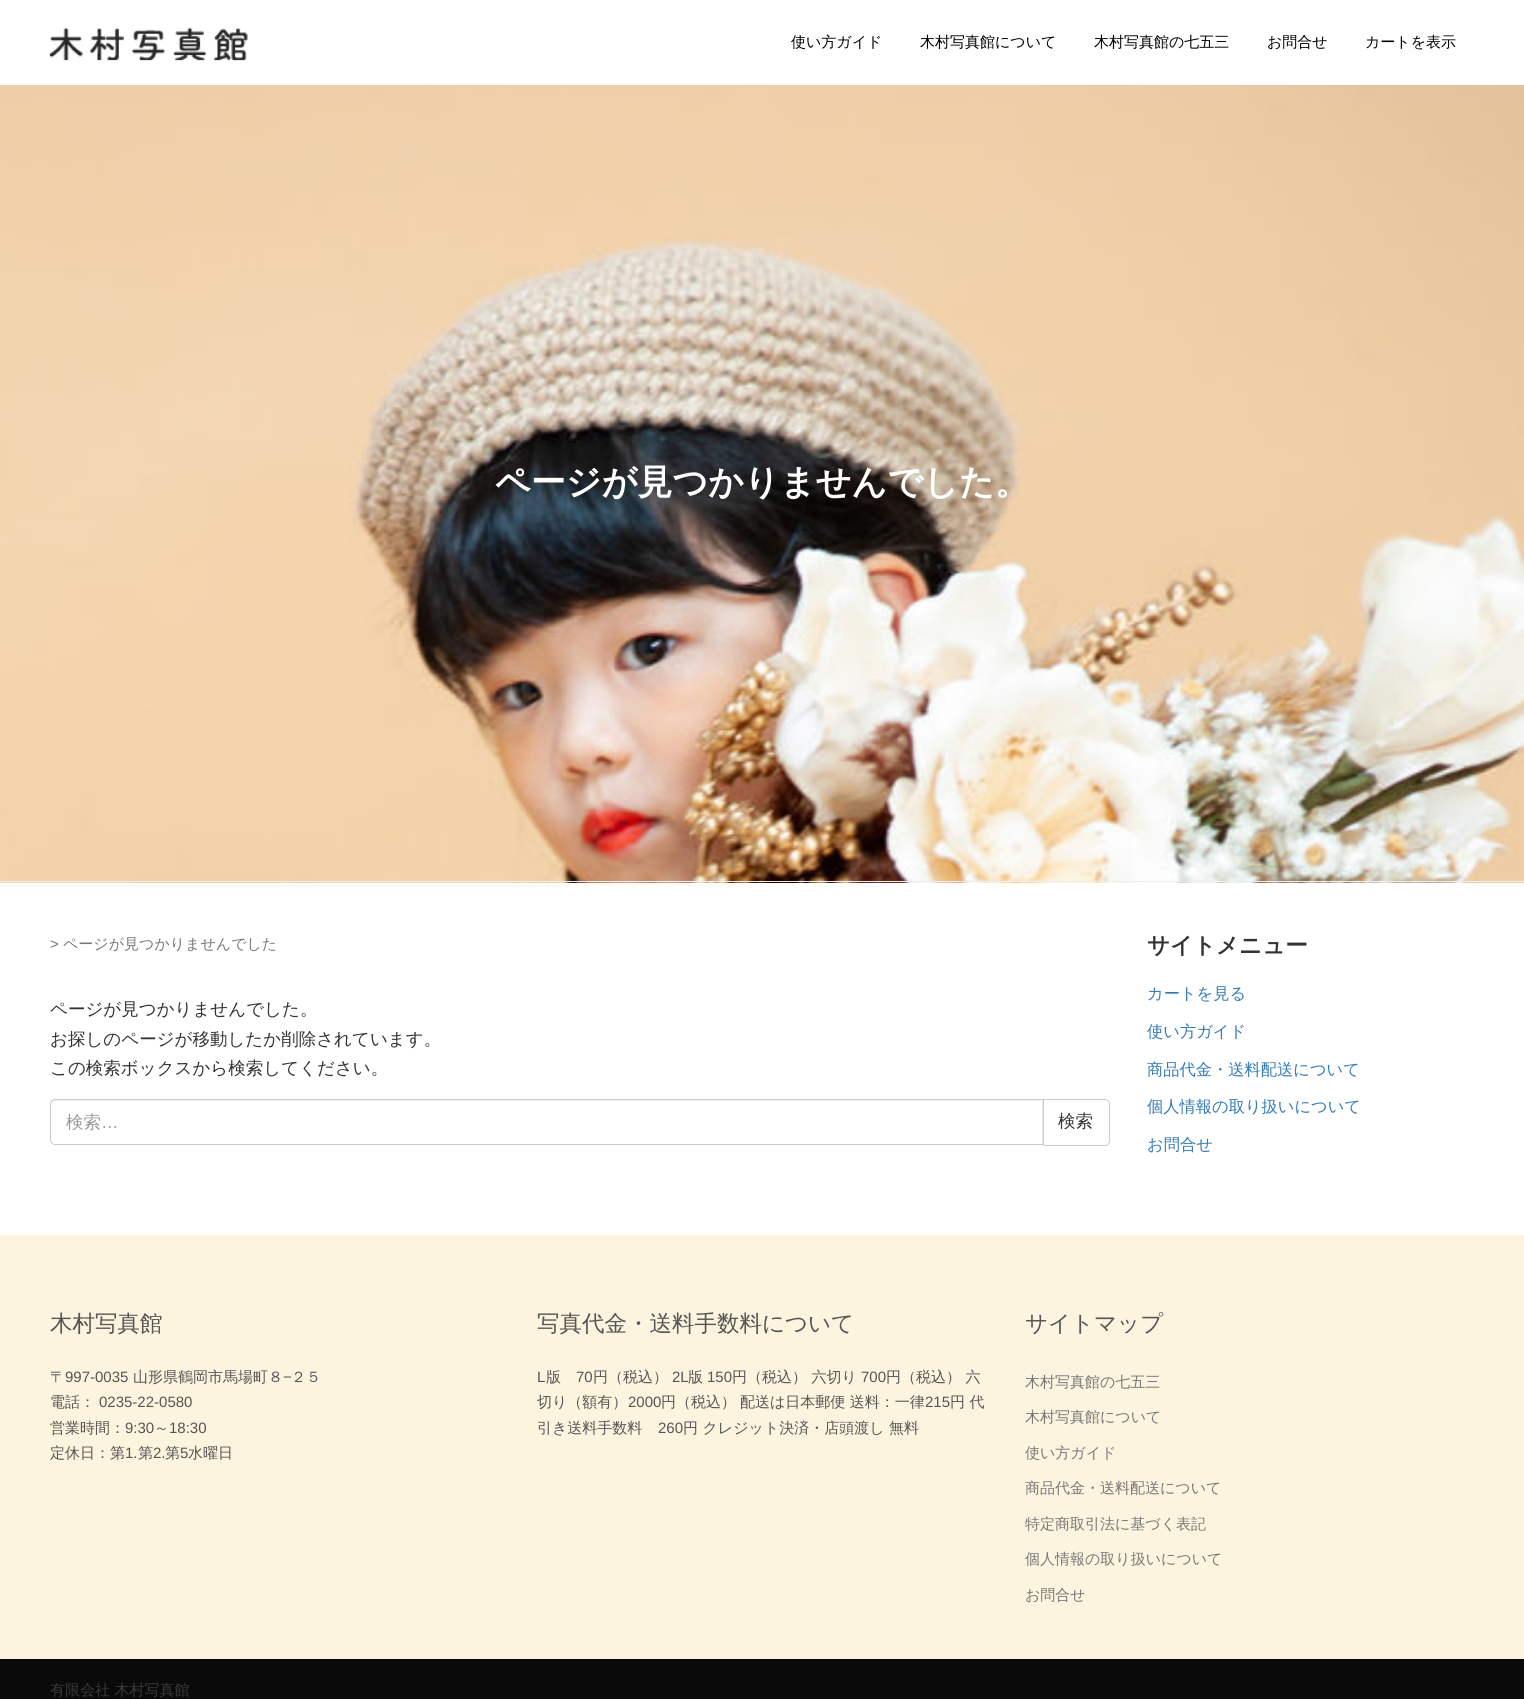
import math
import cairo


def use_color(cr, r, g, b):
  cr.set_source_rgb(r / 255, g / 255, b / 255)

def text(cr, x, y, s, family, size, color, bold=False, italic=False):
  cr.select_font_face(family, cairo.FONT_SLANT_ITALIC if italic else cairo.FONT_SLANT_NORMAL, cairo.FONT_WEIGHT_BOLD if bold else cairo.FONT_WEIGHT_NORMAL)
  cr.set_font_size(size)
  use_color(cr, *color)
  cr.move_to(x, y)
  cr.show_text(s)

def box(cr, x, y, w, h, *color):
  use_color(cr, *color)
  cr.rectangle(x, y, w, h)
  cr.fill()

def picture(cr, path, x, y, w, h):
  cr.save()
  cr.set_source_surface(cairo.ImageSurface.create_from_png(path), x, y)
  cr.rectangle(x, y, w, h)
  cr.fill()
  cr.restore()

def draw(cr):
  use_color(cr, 255, 255, 255)
  cr.paint()
  picture(cr, "img_01.png", 50, 27, 198, 34)
  picture(cr, "img_02.png", 0, 85, 1524, 798)
  box(cr, 0, 881, 1524, 1, 238, 238, 238)
  cr.new_path()
  cr.move_to(1043.5, 1099.5)
  cr.line_to(1105, 1099.5)
  cr.curve_to(1107.5, 1099.5, 1109.5, 1101.5, 1109.5, 1104)
  cr.line_to(1109.5, 1141)
  cr.curve_to(1109.5, 1143.5, 1107.5, 1145.5, 1105, 1145.5)
  cr.line_to(1043.5, 1145.5)
  cr.close_path()
  use_color(cr, 204, 204, 204)
  cr.set_line_width(1)
  cr.stroke()
  use_color(cr, 255, 255, 255)
  cr.new_path()
  cr.move_to(55, 1099)
  cr.line_to(1044, 1099)
  cr.line_to(1044, 1145)
  cr.line_to(55, 1145)
  cr.curve_to(52, 1145, 50, 1143, 50, 1140)
  cr.line_to(50, 1104)
  cr.curve_to(50, 1101, 52, 1099, 55, 1099)
  cr.close_path()
  cr.fill()
  use_color(cr, 236, 236, 236)
  cr.new_path()
  cr.move_to(55, 1101)
  cr.line_to(1042, 1101)
  cr.line_to(1042, 1144)
  cr.line_to(1043, 1144)
  cr.line_to(1043, 1100)
  cr.line_to(55, 1100)
  cr.curve_to(52, 1100, 51, 1102, 51, 1105)
  cr.curve_to(51, 1103, 53, 1101, 55, 1101)
  cr.close_path()
  cr.fill()
  cr.new_path()
  cr.move_to(55, 1099.5)
  cr.line_to(1043.5, 1099.5)
  cr.line_to(1043.5, 1144.5)
  cr.line_to(55, 1144.5)
  cr.curve_to(52.5, 1144.5, 50.5, 1142.5, 50.5, 1140)
  cr.line_to(50.5, 1104)
  cr.curve_to(50.5, 1101.5, 52.5, 1099.5, 55, 1099.5)
  cr.close_path()
  use_color(cr, 204, 204, 204)
  cr.stroke()
  box(cr, 0, 1235, 1524, 424, 252, 244, 222)
  box(cr, 0, 1659, 1524, 40, 10, 10, 10)
  text(cr, 791, 47, "使い方ガイド", "WenQuanYi Zen Hei Medium", 15, (0, 0, 0))
  text(cr, 920, 47, "木村写真館について", "WenQuanYi Zen Hei Medium", 15, (0, 0, 0))
  text(cr, 1094, 47, "木村写真館の七五三", "WenQuanYi Zen Hei Medium", 15, (0, 0, 0))
  text(cr, 1267, 47, "お問合せ", "WenQuanYi Zen Hei Medium", 15, (0, 0, 0))
  text(cr, 1365, 47, "カートを表示", "WenQuanYi Zen Hei Medium", 15, (0, 0, 0))
  text(cr, 495, 494, "ページが見つかりませんでした。", "WenQuanYi Zen Hei", 35, (255, 255, 255), bold=True)
  text(cr, 50, 949, ">", "Liberation Sans", 15, (119, 119, 119))
  text(cr, 63, 949, "ページが見つかりませんでした", "WenQuanYi Zen Hei Medium", 15, (119, 119, 119))
  text(cr, 50, 1015, "ページが見つかりませんでした。", "WenQuanYi Zen Hei Medium", 17.5, (51, 51, 51))
  text(cr, 50, 1045, "お探しのページが移動したか削除されています。", "WenQuanYi Zen Hei Medium", 17.5, (51, 51, 51))
  text(cr, 50, 1074, "この検索ボックスから検索してください。", "WenQuanYi Zen Hei Medium", 17.5, (51, 51, 51))
  text(cr, 66, 1128, "検索", "WenQuanYi Zen Hei Medium", 17.5, (153, 153, 153))
  text(cr, 101, 1128, "…", "Liberation Sans", 17.5, (153, 153, 153))
  text(cr, 1058, 1127, "検索", "WenQuanYi Zen Hei Medium", 17.5, (51, 51, 51))
  text(cr, 1147, 953, "サイトメニュー", "WenQuanYi Zen Hei", 22.5, (51, 51, 51), bold=True)
  text(cr, 1147, 999, "カートを見る", "WenQuanYi Zen Hei Medium", 16.25, (51, 122, 183))
  text(cr, 1147, 1037, "使い方ガイド", "WenQuanYi Zen Hei Medium", 16.25, (51, 122, 183))
  text(cr, 1147, 1075, "商品代金・送料配送について", "WenQuanYi Zen Hei Medium", 16.25, (51, 122, 183))
  text(cr, 1147, 1112, "個人情報の取り扱いについて", "WenQuanYi Zen Hei Medium", 16.25, (51, 122, 183))
  text(cr, 1147, 1150, "お問合せ", "WenQuanYi Zen Hei Medium", 16.25, (51, 122, 183))
  text(cr, 50, 1331, "木村写真館", "WenQuanYi Zen Hei Medium", 22.5, (85, 85, 85))
  text(cr, 50, 1382, "〒", "WenQuanYi Zen Hei Medium", 15, (85, 85, 85))
  text(cr, 65, 1382, "997-0035", "Liberation Sans", 15, (85, 85, 85))
  text(cr, 133, 1382, "山形県鶴岡市馬場町８", "WenQuanYi Zen Hei Medium", 15, (85, 85, 85))
  text(cr, 283, 1382, "−", "Liberation Sans", 15, (85, 85, 85))
  text(cr, 291, 1382, "２５", "WenQuanYi Zen Hei Medium", 15, (85, 85, 85))
  text(cr, 50, 1407, "電話：", "WenQuanYi Zen Hei Medium", 15, (85, 85, 85))
  text(cr, 99, 1407, "0235-22-0580", "Liberation Sans", 15, (85, 85, 85))
  text(cr, 50, 1433, "営業時間：", "WenQuanYi Zen Hei Medium", 15, (85, 85, 85))
  text(cr, 125, 1433, "9:30", "Liberation Sans", 15, (85, 85, 85))
  text(cr, 154, 1433, "～", "WenQuanYi Zen Hei Medium", 15, (85, 85, 85))
  text(cr, 169, 1433, "18:30", "Liberation Sans", 15, (85, 85, 85))
  text(cr, 50, 1458, "定休日：第", "WenQuanYi Zen Hei Medium", 15, (85, 85, 85))
  text(cr, 125, 1458, "1.", "Liberation Sans", 15, (85, 85, 85))
  text(cr, 138, 1458, "第", "WenQuanYi Zen Hei Medium", 15, (85, 85, 85))
  text(cr, 153, 1458, "2.", "Liberation Sans", 15, (85, 85, 85))
  text(cr, 165, 1458, "第", "WenQuanYi Zen Hei Medium", 15, (85, 85, 85))
  text(cr, 180, 1458, "5", "Liberation Sans", 15, (85, 85, 85))
  text(cr, 188, 1458, "水曜日", "WenQuanYi Zen Hei Medium", 15, (85, 85, 85))
  text(cr, 537, 1331, "写真代金・送料手数料について", "WenQuanYi Zen Hei Medium", 22.5, (85, 85, 85))
  text(cr, 537, 1382, "L", "Liberation Sans", 15, (85, 85, 85))
  text(cr, 546, 1382, "版", "WenQuanYi Zen Hei Medium", 15, (85, 85, 85))
  text(cr, 576, 1382, "70", "Liberation Sans", 15, (85, 85, 85))
  text(cr, 593, 1382, "円（税込）", "WenQuanYi Zen Hei Medium", 15, (85, 85, 85))
  text(cr, 672, 1382, "2L", "Liberation Sans", 15, (85, 85, 85))
  text(cr, 688, 1382, "版", "WenQuanYi Zen Hei Medium", 15, (85, 85, 85))
  text(cr, 707, 1382, "150", "Liberation Sans", 15, (85, 85, 85))
  text(cr, 732, 1382, "円（税込） 六切り", "WenQuanYi Zen Hei Medium", 15, (85, 85, 85))
  text(cr, 861, 1382, "700", "Liberation Sans", 15, (85, 85, 85))
  text(cr, 886, 1382, "円（税込） 六", "WenQuanYi Zen Hei Medium", 15, (85, 85, 85))
  text(cr, 537, 1407, "切り（額有）", "WenQuanYi Zen Hei Medium", 15, (85, 85, 85))
  text(cr, 628, 1407, "2000", "Liberation Sans", 15, (85, 85, 85))
  text(cr, 661, 1407, "円（税込）", "WenQuanYi Zen Hei Medium", 15, (85, 85, 85))
  text(cr, 740, 1407, "配送は日本郵便 送料：一律", "WenQuanYi Zen Hei Medium", 15, (85, 85, 85))
  text(cr, 925, 1407, "215", "Liberation Sans", 15, (85, 85, 85))
  text(cr, 950, 1407, "円 代", "WenQuanYi Zen Hei Medium", 15, (85, 85, 85))
  text(cr, 537, 1433, "引き送料手数料", "WenQuanYi Zen Hei Medium", 15, (85, 85, 85))
  text(cr, 658, 1433, "260", "Liberation Sans", 15, (85, 85, 85))
  text(cr, 683, 1433, "円 クレジット決済・店頭渡し 無料", "WenQuanYi Zen Hei Medium", 15, (85, 85, 85))
  text(cr, 1025, 1331, "サイトマップ", "WenQuanYi Zen Hei Medium", 22.5, (85, 85, 85))
  text(cr, 1025, 1387, "木村写真館の七五三", "WenQuanYi Zen Hei Medium", 15, (119, 119, 119))
  text(cr, 1025, 1422, "木村写真館について", "WenQuanYi Zen Hei Medium", 15, (119, 119, 119))
  text(cr, 1025, 1458, "使い方ガイド", "WenQuanYi Zen Hei Medium", 15, (119, 119, 119))
  text(cr, 1025, 1493, "商品代金・送料配送について", "WenQuanYi Zen Hei Medium", 15, (119, 119, 119))
  text(cr, 1025, 1529, "特定商取引法に基づく表記", "WenQuanYi Zen Hei Medium", 15, (119, 119, 119))
  text(cr, 1025, 1564, "個人情報の取り扱いについて", "WenQuanYi Zen Hei Medium", 15, (119, 119, 119))
  text(cr, 1025, 1600, "お問合せ", "WenQuanYi Zen Hei Medium", 15, (119, 119, 119))
  text(cr, 50, 1695, "有限会社 木村写真館", "WenQuanYi Zen Hei Medium", 15, (57, 57, 57))


surface = cairo.ImageSurface(cairo.FORMAT_RGB24, 1524, 1699)
cr = cairo.Context(surface)
options = cairo.FontOptions()
options.set_hint_metrics(cairo.HINT_METRICS_OFF)
options.set_hint_style(cairo.HINT_STYLE_NONE)
cr.set_font_options(options)
cr.set_miter_limit(4)
draw(cr)
surface.write_to_png("out.png")
